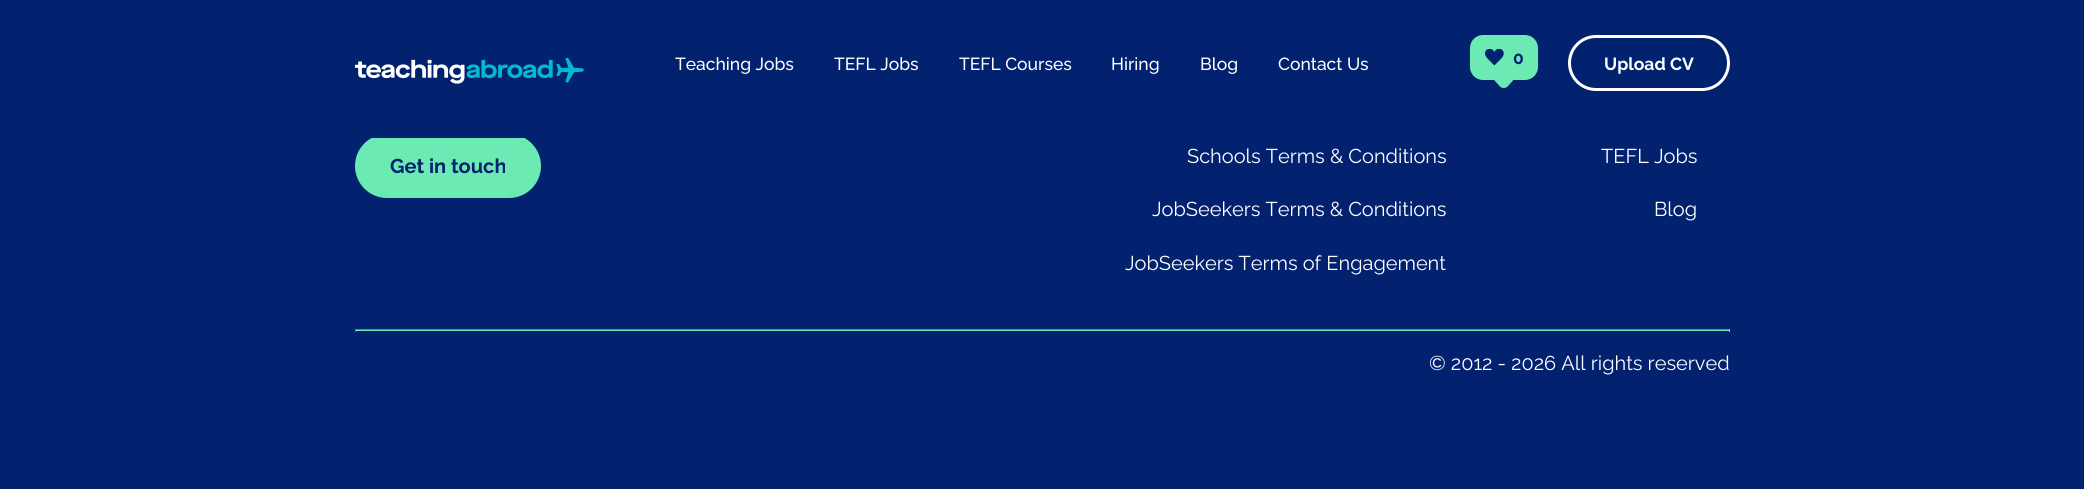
import math
import cairo


def use_color(cr, r, g, b):
  cr.set_source_rgb(r / 255, g / 255, b / 255)

def text(cr, x, y, s, family, size, color, bold=False, italic=False):
  cr.select_font_face(family, cairo.FONT_SLANT_ITALIC if italic else cairo.FONT_SLANT_NORMAL, cairo.FONT_WEIGHT_BOLD if bold else cairo.FONT_WEIGHT_NORMAL)
  cr.set_font_size(size)
  use_color(cr, *color)
  cr.move_to(x, y)
  cr.show_text(s)

def box(cr, x, y, w, h, *color):
  use_color(cr, *color)
  cr.rectangle(x, y, w, h)
  cr.fill()

def round_rect(cr, x, y, w, h, r):
  cr.new_sub_path()
  for i, (u, v) in enumerate([(x + w - r, y + h - r), (x + r, y + h - r), (x + r, y + r), (x + w - r, y + r)]):
    cr.arc(u, v, r, i * math.pi / 2, (i + 1) * math.pi / 2)
  cr.close_path()

def picture(cr, path, x, y, w, h):
  cr.save()
  cr.set_source_surface(cairo.ImageSurface.create_from_png(path), x, y)
  cr.rectangle(x, y, w, h)
  cr.fill()
  cr.restore()

def draw(cr):
  use_color(cr, 2, 34, 111)
  cr.paint()
  use_color(cr, 107, 235, 179)
  round_rect(cr, 355, 134, 186, 64, 32)
  cr.fill()
  box(cr, 371, 134, 154, 4, 2, 34, 111)
  picture(cr, "img_01.png", 355, 58, 229, 26)
  use_color(cr, 107, 235, 179)
  round_rect(cr, 1470, 35, 68, 45, 13)
  cr.fill()
  picture(cr, "img_02.png", 1485, 49, 19, 17)
  cr.new_path()
  cr.move_to(1507.5, 68.5)
  cr.line_to(1512.5, 74)
  cr.curve_to(1514.5, 76, 1514.5, 79, 1512.5, 81)
  cr.line_to(1507.5, 86.5)
  cr.curve_to(1505.5, 88.5, 1502, 88.5, 1500, 86.5)
  cr.line_to(1495, 81)
  cr.curve_to(1493, 79, 1493, 76, 1495, 74)
  cr.line_to(1500, 68.5)
  cr.curve_to(1502, 66.5, 1505.5, 66.5, 1507.5, 68.5)
  cr.close_path()
  cr.fill()
  round_rect(cr, 1569.5, 36.5, 159, 53, 26.5)
  use_color(cr, 255, 255, 255)
  cr.set_line_width(3)
  cr.stroke()
  box(cr, 355, 329, 1375, 1, 71, 157, 119)
  box(cr, 1729, 329, 1, 3, 107, 235, 179)
  box(cr, 355, 330, 1375, 1, 107, 235, 179)
  box(cr, 355, 329, 1, 3, 71, 157, 119)
  text(cr, 675, 70, "Teaching Jobs", "Raleway Medium", 17.5, (255, 255, 255))
  text(cr, 834, 70, "TEFL Jobs", "Raleway Medium", 17.5, (255, 255, 255))
  text(cr, 959, 70, "TEFL Courses", "Raleway Medium", 17.5, (255, 255, 255))
  text(cr, 1111, 70, "Hiring", "Raleway Medium", 17.5, (255, 255, 255))
  text(cr, 1200, 70, "Blog", "Raleway Medium", 17.5, (255, 255, 255))
  text(cr, 1278, 70, "Contact Us", "Raleway Medium", 17.5, (255, 255, 255))
  text(cr, 1513, 64, "0", "Raleway", 17.5, (2, 34, 111), bold=True)
  text(cr, 1604, 70, "Upload CV", "Raleway", 17.5, (255, 255, 255), bold=True)
  text(cr, 390, 173, "Get in touch", "Raleway", 20, (2, 34, 111), bold=True)
  text(cr, 1187, 163, "Schools Terms & Conditions", "Raleway", 20, (255, 255, 255))
  text(cr, 1152, 216, "JobSeekers Terms & Conditions", "Raleway", 20, (255, 255, 255))
  text(cr, 1125, 270, "JobSeekers Terms of Engagement", "Raleway", 20, (255, 255, 255))
  text(cr, 1601, 163, "TEFL Jobs", "Raleway", 20, (255, 255, 255))
  text(cr, 1654, 216, "Blog", "Raleway", 20, (255, 255, 255))
  text(cr, 1429, 370, "© 2012 - 2026 All rights reserved", "Raleway", 20, (255, 255, 255))


surface = cairo.ImageSurface(cairo.FORMAT_RGB24, 2084, 489)
cr = cairo.Context(surface)
options = cairo.FontOptions()
options.set_hint_metrics(cairo.HINT_METRICS_OFF)
options.set_hint_style(cairo.HINT_STYLE_NONE)
cr.set_font_options(options)
cr.set_miter_limit(4)
draw(cr)
surface.write_to_png("out.png")
